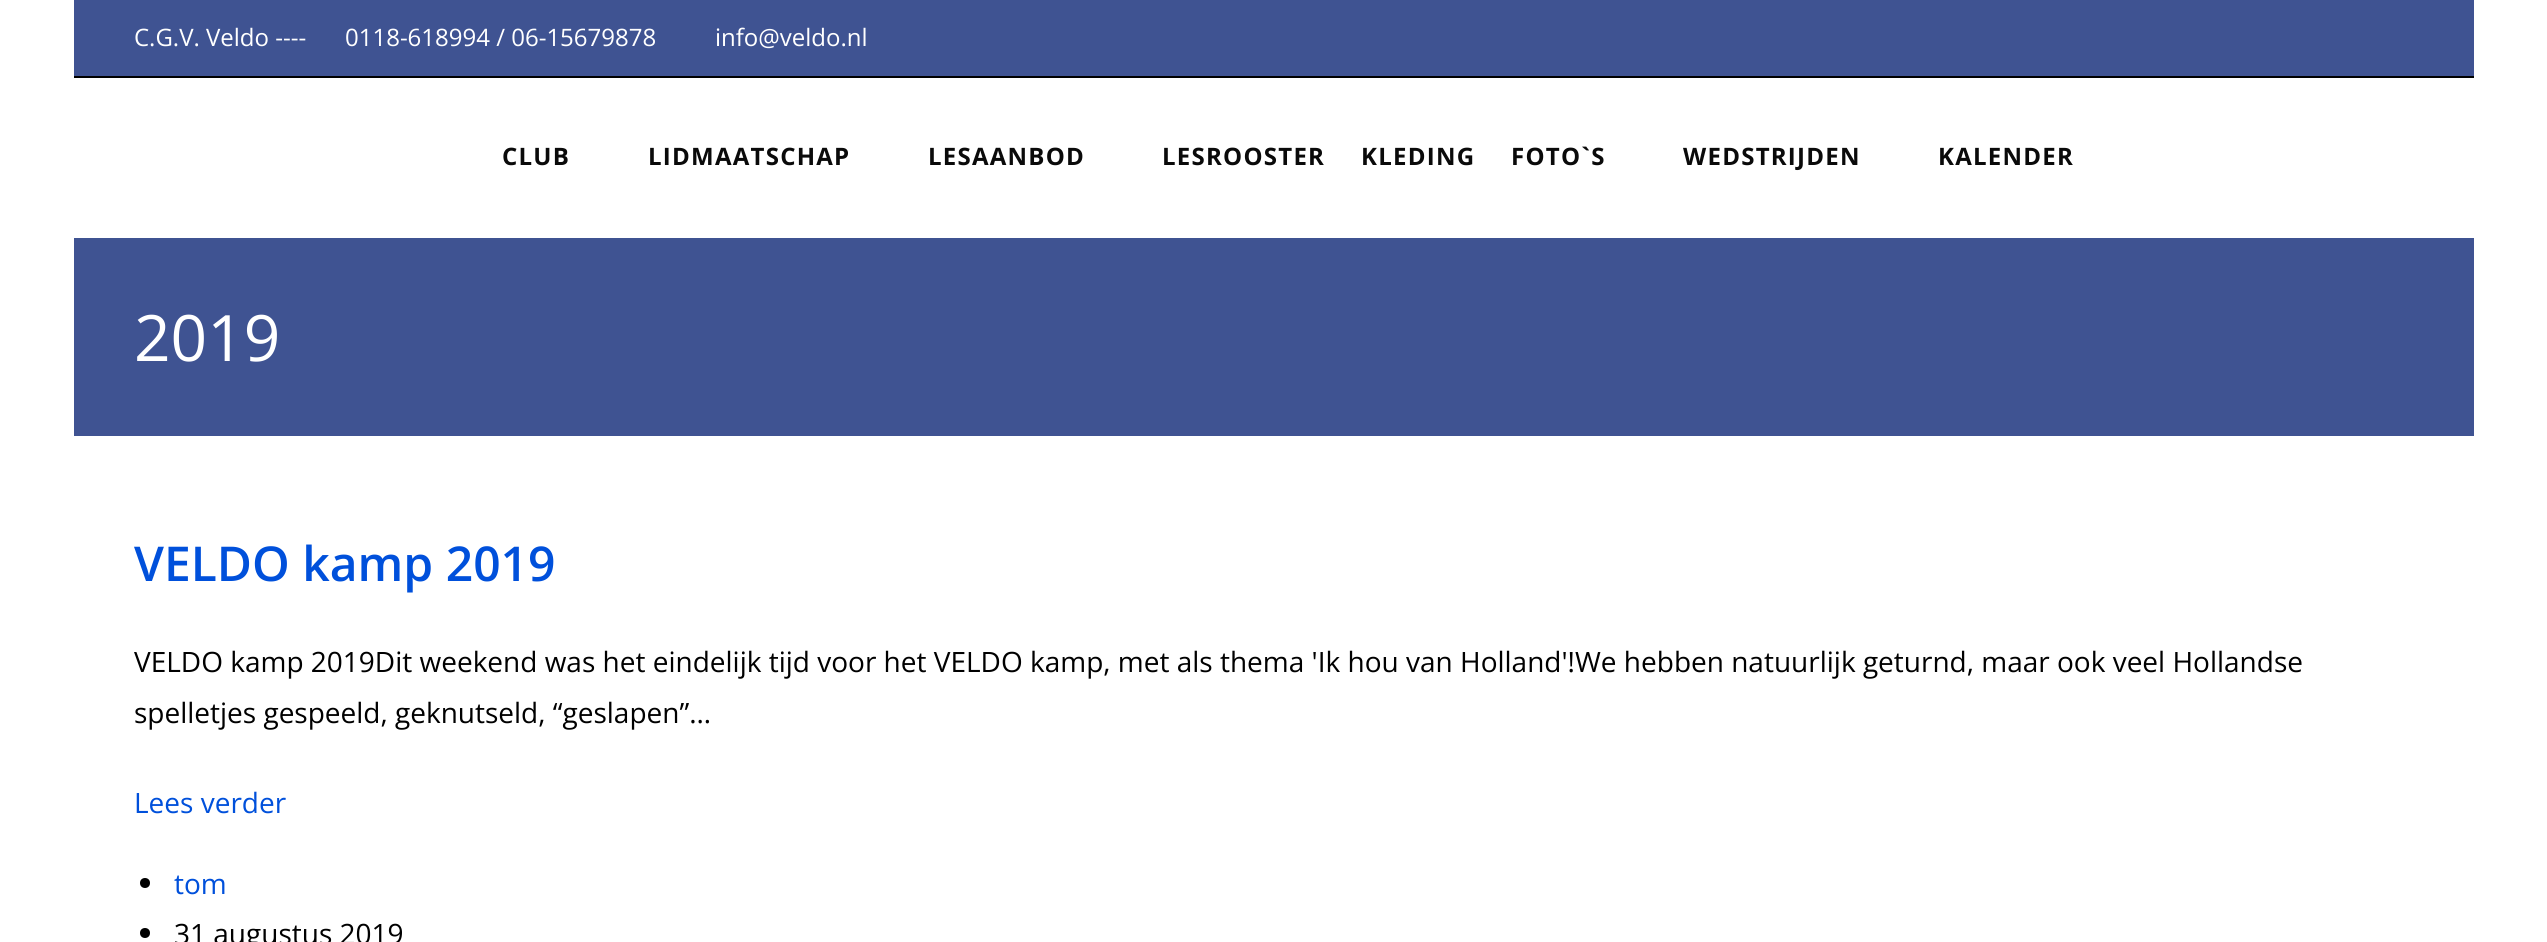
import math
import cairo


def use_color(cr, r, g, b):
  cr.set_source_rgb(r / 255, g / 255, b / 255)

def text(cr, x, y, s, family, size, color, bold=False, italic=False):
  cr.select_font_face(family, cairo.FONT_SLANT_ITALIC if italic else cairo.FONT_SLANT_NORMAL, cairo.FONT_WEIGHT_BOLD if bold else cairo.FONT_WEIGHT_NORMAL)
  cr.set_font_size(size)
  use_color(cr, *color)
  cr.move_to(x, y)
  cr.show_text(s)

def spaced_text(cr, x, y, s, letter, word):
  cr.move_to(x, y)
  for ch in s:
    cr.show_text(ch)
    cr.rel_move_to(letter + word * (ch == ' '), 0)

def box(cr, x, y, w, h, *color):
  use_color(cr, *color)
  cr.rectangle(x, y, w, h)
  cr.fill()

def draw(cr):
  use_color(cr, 255, 255, 255)
  cr.paint()
  box(cr, 74, 0, 2400, 76, 63, 83, 146)
  box(cr, 74, 76, 2400, 2, 0, 0, 0)
  box(cr, 74, 238, 2400, 198, 63, 83, 146)
  use_color(cr, 0, 0, 0)
  cr.arc(145, 883, 5, 0, 2 * math.pi)
  cr.fill()
  cr.arc(145, 933, 5, 0, 2 * math.pi)
  cr.fill()
  text(cr, 134, 46, "C.G.V. Veldo ----", "Open Sans", 24, (255, 255, 255))
  text(cr, 345, 46, "0118-618994 / 06-15679878", "Open Sans", 24, (255, 255, 255))
  text(cr, 715, 46, "info@veldo.nl", "Open Sans", 24, (255, 255, 255))
  cr.select_font_face("Open Sans", cairo.FONT_SLANT_NORMAL, cairo.FONT_WEIGHT_BOLD)
  use_color(cr, 10, 10, 10)
  spaced_text(cr, 502, 165, "CLUB", 1.25, 0)
  spaced_text(cr, 648, 165, "LIDMAATSCHAP", 1.25, 0)
  spaced_text(cr, 928, 165, "LESAANBOD", 1.25, 0)
  spaced_text(cr, 1162, 165, "LESROOSTER", 1.25, 0)
  spaced_text(cr, 1361, 165, "KLEDING", 1.25, 0)
  spaced_text(cr, 1511, 165, "FOTO`S", 1.25, 0)
  spaced_text(cr, 1683, 165, "WEDSTRIJDEN", 1.25, 0)
  spaced_text(cr, 1938, 165, "KALENDER", 1.25, 0)
  text(cr, 134, 361, "2019", "Open Sans", 64, (255, 255, 255))
  text(cr, 134, 581, "VELDO kamp 2019", "Open Sans SemiBold", 48, (0, 80, 219))
  text(cr, 134, 672, "VELDO kamp 2019Dit weekend was het eindelijk tijd voor het VELDO kamp, met als thema 'Ik hou van Holland'!We hebben natuurlijk geturnd, maar ook veel Hollandse", "Open Sans", 28, (0, 0, 0))
  text(cr, 134, 723, "spelletjes gespeeld, geknutseld, “geslapen”…", "Open Sans", 28, (0, 0, 0))
  text(cr, 134, 813, "Lees verder", "Open Sans", 28, (0, 80, 219))
  text(cr, 174, 894, "tom", "Open Sans", 28, (0, 80, 219))
  text(cr, 174, 944, "31 augustus 2019", "Open Sans", 28, (0, 0, 0))


surface = cairo.ImageSurface(cairo.FORMAT_RGB24, 2547, 942)
cr = cairo.Context(surface)
options = cairo.FontOptions()
options.set_hint_metrics(cairo.HINT_METRICS_OFF)
options.set_hint_style(cairo.HINT_STYLE_NONE)
cr.set_font_options(options)
cr.set_miter_limit(4)
draw(cr)
surface.write_to_png("out.png")
